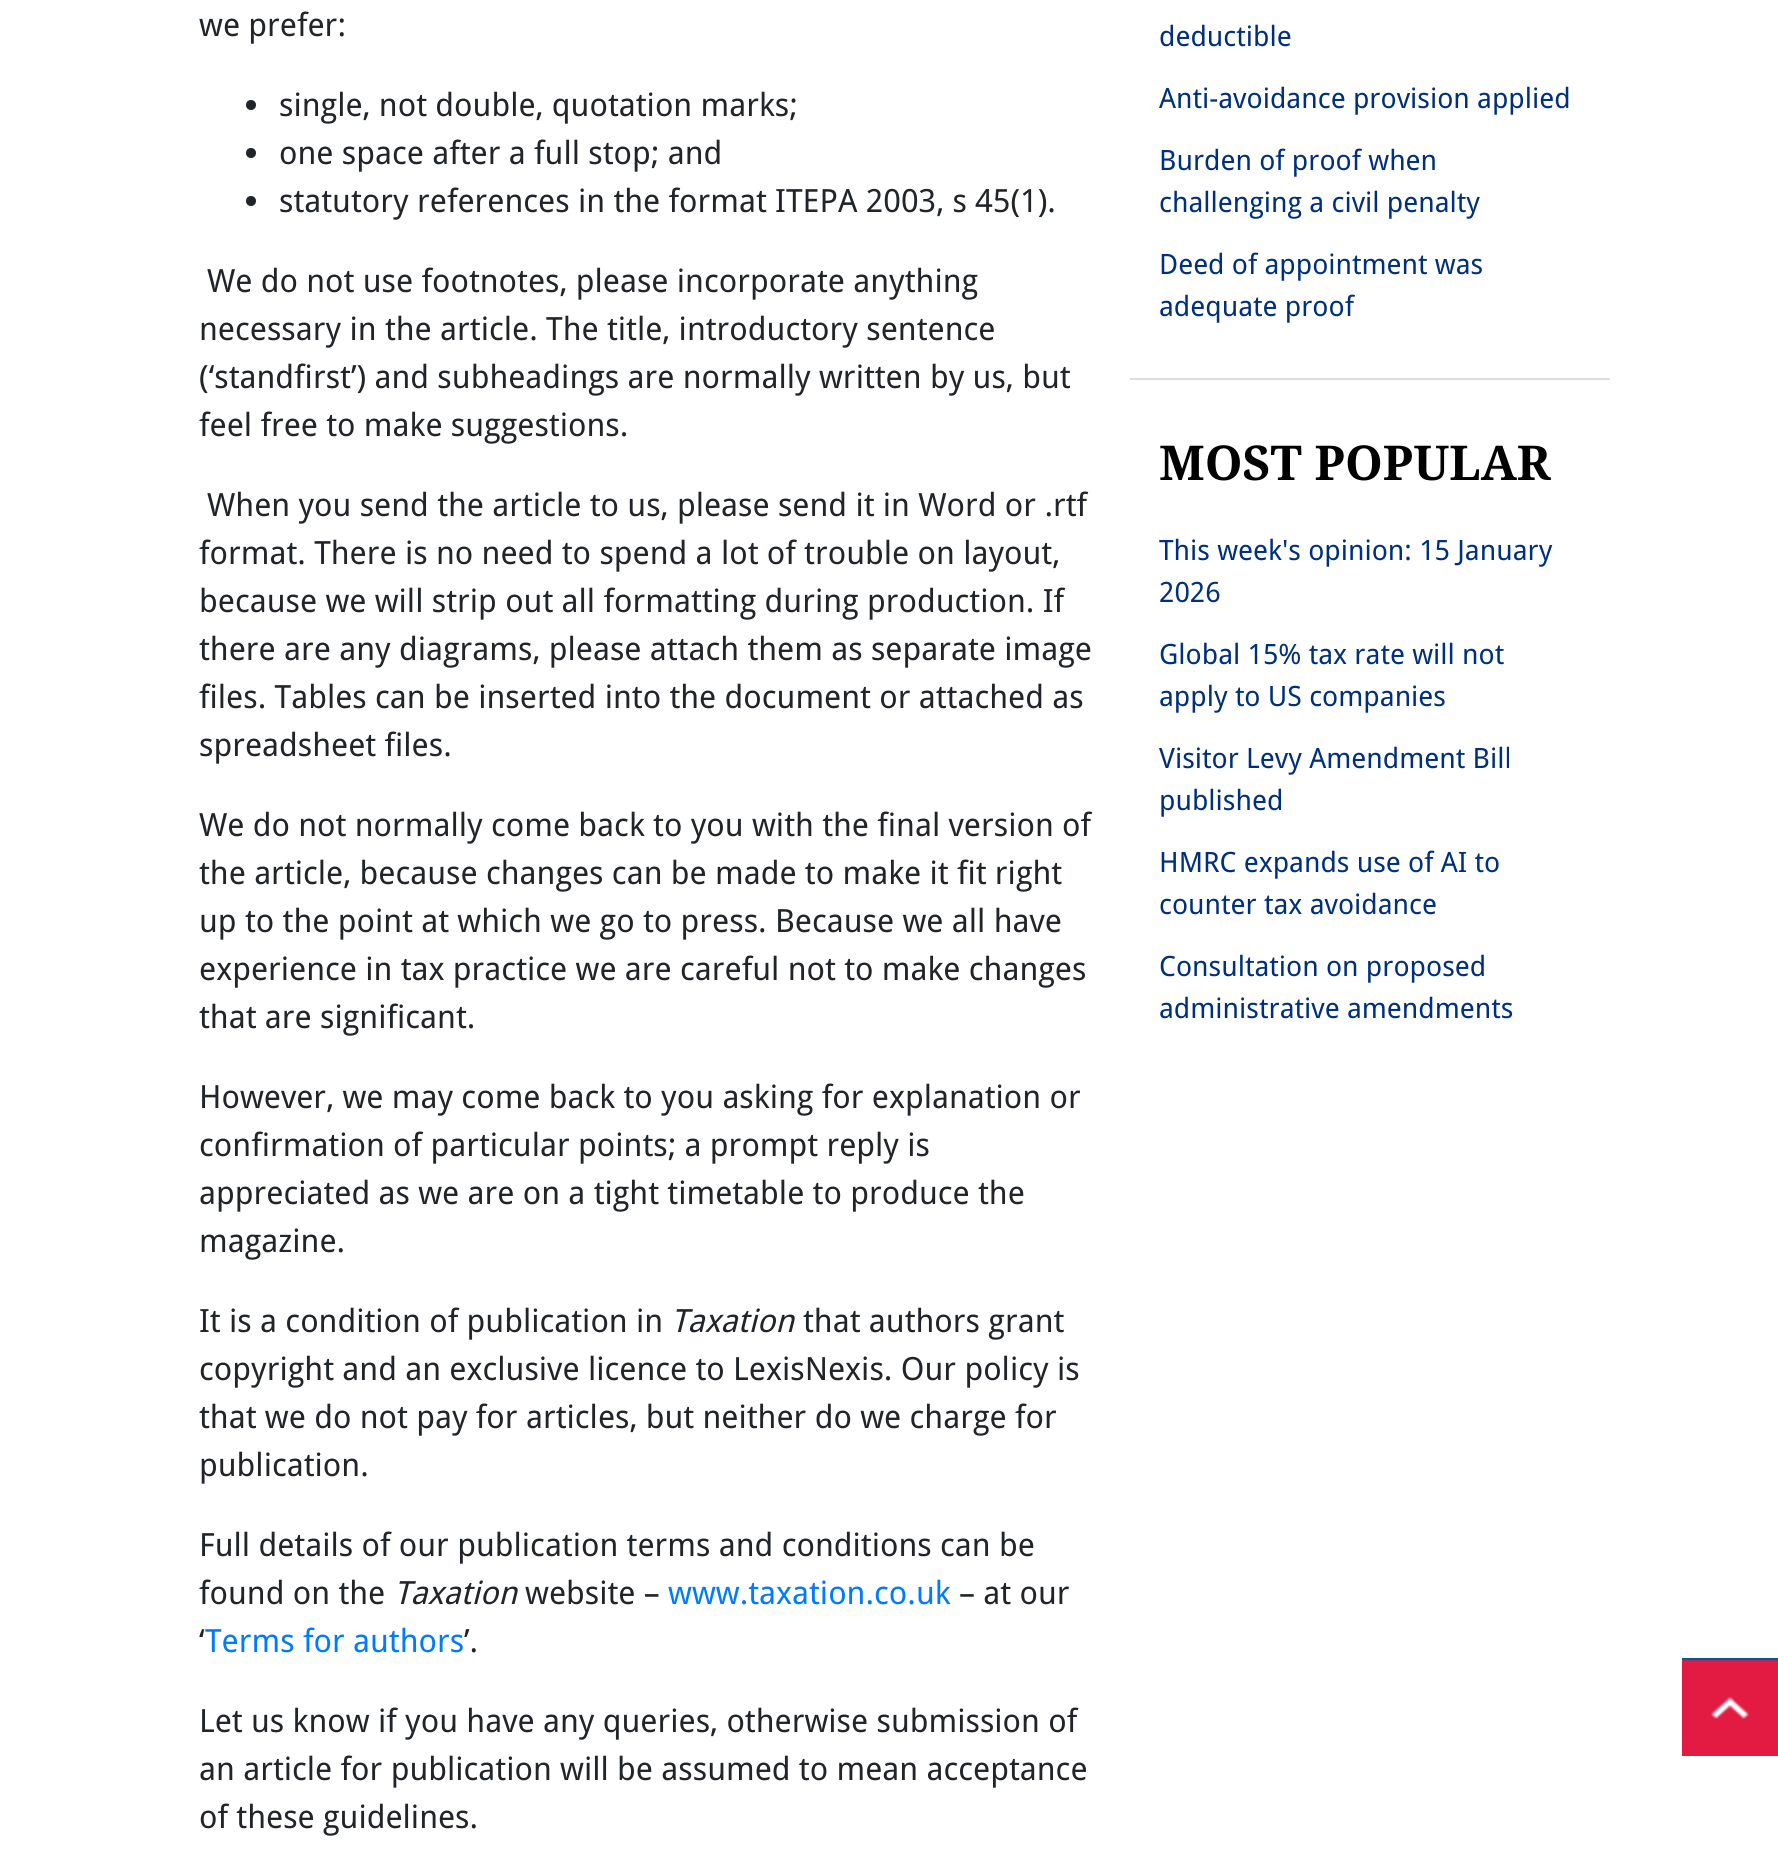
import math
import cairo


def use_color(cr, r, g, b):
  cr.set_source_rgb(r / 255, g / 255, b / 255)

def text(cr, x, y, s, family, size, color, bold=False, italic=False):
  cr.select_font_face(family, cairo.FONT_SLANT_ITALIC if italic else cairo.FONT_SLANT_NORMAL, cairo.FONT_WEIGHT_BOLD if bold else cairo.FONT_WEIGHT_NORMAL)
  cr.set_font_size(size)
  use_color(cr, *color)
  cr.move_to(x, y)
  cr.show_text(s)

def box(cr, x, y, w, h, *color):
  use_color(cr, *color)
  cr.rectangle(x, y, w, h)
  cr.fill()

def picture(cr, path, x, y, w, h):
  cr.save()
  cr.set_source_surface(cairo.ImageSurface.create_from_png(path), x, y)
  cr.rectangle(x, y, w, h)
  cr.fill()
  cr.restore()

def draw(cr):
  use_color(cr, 255, 255, 255)
  cr.paint()
  use_color(cr, 33, 37, 41)
  cr.arc(251, 105, 5, 0, 2 * math.pi)
  cr.fill()
  cr.arc(251, 153, 5, 0, 2 * math.pi)
  cr.fill()
  cr.arc(251, 201, 5, 0, 2 * math.pi)
  cr.fill()
  box(cr, 1130, 378, 480, 2, 221, 221, 221)
  box(cr, 1682, 1658, 96, 3, 1, 86, 151)
  picture(cr, "img_01.png", 1682, 1659, 96, 97)
  text(cr, 199, 36, "we prefer:", "Droid Sans", 32, (33, 37, 41))
  text(cr, 279, 116, "single, not double, quotation marks;", "Droid Sans", 32, (33, 37, 41))
  text(cr, 279, 164, "one space after a full stop; and", "Droid Sans", 32, (33, 37, 41))
  text(cr, 279, 212, "statutory references in the format ITEPA 2003, s 45(1).", "Droid Sans", 32, (33, 37, 41))
  text(cr, 207, 292, "We do not use footnotes, please incorporate anything", "Droid Sans", 32, (33, 37, 41))
  text(cr, 199, 340, "necessary in the article. The title, introductory sentence", "Droid Sans", 32, (33, 37, 41))
  text(cr, 199, 388, "(‘standfirst’) and subheadings are normally written by us, but", "Droid Sans", 32, (33, 37, 41))
  text(cr, 199, 436, "feel free to make suggestions.", "Droid Sans", 32, (33, 37, 41))
  text(cr, 207, 516, "When you send the article to us, please send it in Word or .rtf", "Droid Sans", 32, (33, 37, 41))
  text(cr, 199, 564, "format. There is no need to spend a lot of trouble on layout,", "Droid Sans", 32, (33, 37, 41))
  text(cr, 199, 612, "because we will strip out all formatting during production. If", "Droid Sans", 32, (33, 37, 41))
  text(cr, 199, 660, "there are any diagrams, please attach them as separate image", "Droid Sans", 32, (33, 37, 41))
  text(cr, 199, 708, "files. Tables can be inserted into the document or attached as", "Droid Sans", 32, (33, 37, 41))
  text(cr, 199, 756, "spreadsheet files.", "Droid Sans", 32, (33, 37, 41))
  text(cr, 199, 836, "We do not normally come back to you with the final version of", "Droid Sans", 32, (33, 37, 41))
  text(cr, 199, 884, "the article, because changes can be made to make it fit right", "Droid Sans", 32, (33, 37, 41))
  text(cr, 199, 932, "up to the point at which we go to press. Because we all have", "Droid Sans", 32, (33, 37, 41))
  text(cr, 199, 980, "experience in tax practice we are careful not to make changes", "Droid Sans", 32, (33, 37, 41))
  text(cr, 199, 1028, "that are significant.", "Droid Sans", 32, (33, 37, 41))
  text(cr, 199, 1108, "However, we may come back to you asking for explanation or", "Droid Sans", 32, (33, 37, 41))
  text(cr, 199, 1156, "confirmation of particular points; a prompt reply is", "Droid Sans", 32, (33, 37, 41))
  text(cr, 199, 1204, "appreciated as we are on a tight timetable to produce the", "Droid Sans", 32, (33, 37, 41))
  text(cr, 199, 1252, "magazine.", "Droid Sans", 32, (33, 37, 41))
  text(cr, 199, 1332, "It is a condition of publication in", "Droid Sans", 32, (33, 37, 41))
  text(cr, 671, 1332, "Taxation", "Droid Sans", 32, (33, 37, 41), italic=True)
  text(cr, 803, 1332, "that authors grant", "Droid Sans", 32, (33, 37, 41))
  text(cr, 199, 1380, "copyright and an exclusive licence to LexisNexis. Our policy is", "Droid Sans", 32, (33, 37, 41))
  text(cr, 199, 1428, "that we do not pay for articles, but neither do we charge for", "Droid Sans", 32, (33, 37, 41))
  text(cr, 199, 1476, "publication.", "Droid Sans", 32, (33, 37, 41))
  text(cr, 199, 1556, "Full details of our publication terms and conditions can be", "Droid Sans", 32, (33, 37, 41))
  text(cr, 199, 1604, "found on the", "Droid Sans", 32, (33, 37, 41))
  text(cr, 394, 1604, "Taxation", "Droid Sans", 32, (33, 37, 41), italic=True)
  text(cr, 525, 1604, "website –", "Droid Sans", 32, (33, 37, 41))
  text(cr, 668, 1604, "www.taxation.co.uk", "Droid Sans", 32, (0, 123, 255))
  text(cr, 959, 1604, "– at our", "Droid Sans", 32, (33, 37, 41))
  text(cr, 199, 1652, "‘", "Droid Sans", 32, (33, 37, 41))
  text(cr, 205, 1652, "Terms for authors", "Droid Sans", 32, (0, 123, 255))
  text(cr, 464, 1652, "’.", "Droid Sans", 32, (33, 37, 41))
  text(cr, 199, 1732, "Let us know if you have any queries, otherwise submission of", "Droid Sans", 32, (33, 37, 41))
  text(cr, 199, 1780, "an article for publication will be assumed to mean acceptance", "Droid Sans", 32, (33, 37, 41))
  text(cr, 199, 1828, "of these guidelines.", "Droid Sans", 32, (33, 37, 41))
  text(cr, 1159, 46, "deductible", "Droid Sans", 28, (0, 48, 124))
  text(cr, 1159, 108, "Anti-avoidance provision applied", "Droid Sans", 28, (0, 48, 124))
  text(cr, 1159, 170, "Burden of proof when", "Droid Sans", 28, (0, 48, 124))
  text(cr, 1159, 212, "challenging a civil penalty", "Droid Sans", 28, (0, 48, 124))
  text(cr, 1159, 274, "Deed of appointment was", "Droid Sans", 28, (0, 48, 124))
  text(cr, 1159, 316, "adequate proof", "Droid Sans", 28, (0, 48, 124))
  text(cr, 1159, 480, "MOST POPULAR", "Droid Serif", 48, (0, 0, 0), bold=True)
  text(cr, 1159, 560, "This week's opinion: 15 January", "Droid Sans", 28, (0, 48, 124))
  text(cr, 1159, 602, "2026", "Droid Sans", 28, (0, 48, 124))
  text(cr, 1159, 664, "Global 15% tax rate will not", "Droid Sans", 28, (0, 48, 124))
  text(cr, 1159, 706, "apply to US companies", "Droid Sans", 28, (0, 48, 124))
  text(cr, 1159, 768, "Visitor Levy Amendment Bill", "Droid Sans", 28, (0, 48, 124))
  text(cr, 1159, 810, "published", "Droid Sans", 28, (0, 48, 124))
  text(cr, 1159, 872, "HMRC expands use of AI to", "Droid Sans", 28, (0, 48, 124))
  text(cr, 1159, 914, "counter tax avoidance", "Droid Sans", 28, (0, 48, 124))
  text(cr, 1159, 976, "Consultation on proposed", "Droid Sans", 28, (0, 48, 124))
  text(cr, 1159, 1018, "administrative amendments", "Droid Sans", 28, (0, 48, 124))


surface = cairo.ImageSurface(cairo.FORMAT_RGB24, 1778, 1855)
cr = cairo.Context(surface)
options = cairo.FontOptions()
options.set_hint_metrics(cairo.HINT_METRICS_OFF)
options.set_hint_style(cairo.HINT_STYLE_NONE)
cr.set_font_options(options)
cr.set_miter_limit(4)
draw(cr)
surface.write_to_png("out.png")
